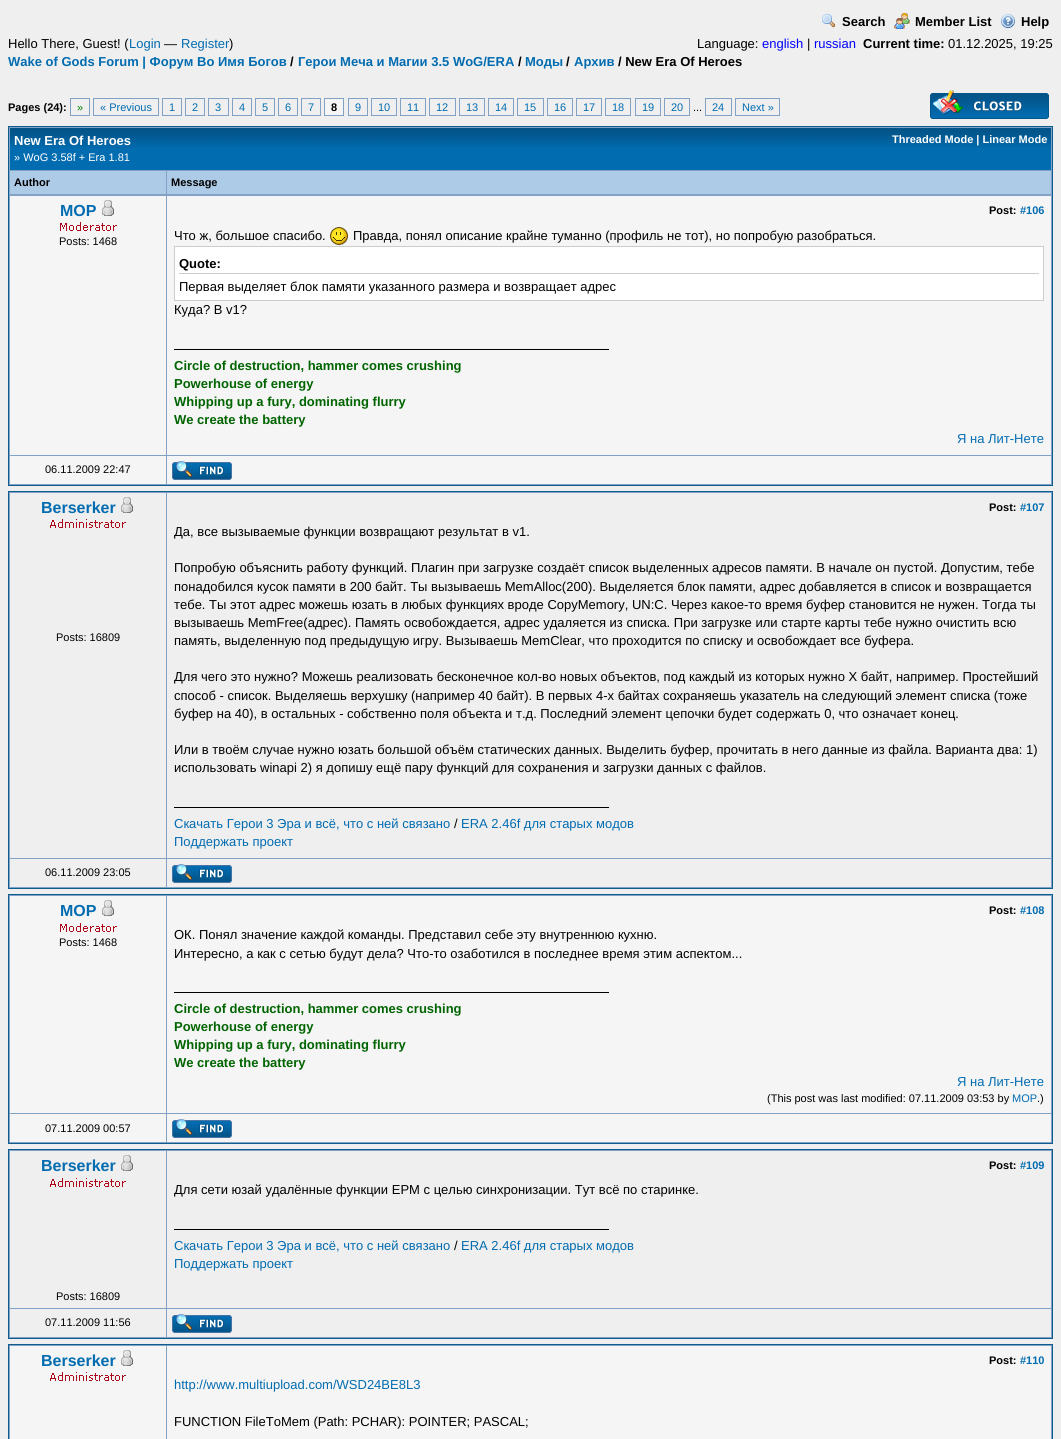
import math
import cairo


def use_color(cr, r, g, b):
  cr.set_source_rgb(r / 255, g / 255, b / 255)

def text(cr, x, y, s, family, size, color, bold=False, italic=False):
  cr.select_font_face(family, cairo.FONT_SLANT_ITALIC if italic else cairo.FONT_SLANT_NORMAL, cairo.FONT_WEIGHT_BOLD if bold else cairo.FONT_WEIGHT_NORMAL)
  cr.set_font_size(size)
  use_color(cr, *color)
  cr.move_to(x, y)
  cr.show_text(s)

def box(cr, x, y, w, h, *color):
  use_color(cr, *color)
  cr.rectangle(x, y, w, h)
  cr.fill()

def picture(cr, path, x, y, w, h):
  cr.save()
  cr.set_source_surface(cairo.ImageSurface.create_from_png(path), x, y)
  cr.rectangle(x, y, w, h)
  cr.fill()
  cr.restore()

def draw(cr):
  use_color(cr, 239, 239, 239)
  cr.paint()
  picture(cr, "img_01.png", 822, 14, 13, 14)
  picture(cr, "img_02.png", 894, 13, 16, 16)
  picture(cr, "img_03.png", 1001, 14, 14, 14)
  cr.rectangle(70.5, 98.5, 19, 17)
  use_color(cr, 129, 162, 196)
  cr.set_line_width(1)
  cr.stroke()
  cr.rectangle(93.5, 98.5, 65, 17)
  cr.stroke()
  cr.rectangle(162.5, 98.5, 19, 17)
  cr.stroke()
  cr.rectangle(185.5, 98.5, 19, 17)
  cr.stroke()
  cr.rectangle(208.5, 98.5, 20, 17)
  cr.stroke()
  cr.rectangle(232.5, 98.5, 19, 17)
  cr.stroke()
  cr.rectangle(255.5, 98.5, 19, 17)
  cr.stroke()
  cr.rectangle(278.5, 98.5, 19, 17)
  cr.stroke()
  cr.rectangle(301.5, 98.5, 19, 17)
  cr.stroke()
  use_color(cr, 245, 245, 245)
  cr.rectangle(324.5, 98.5, 19, 17)
  cr.fill_preserve()
  use_color(cr, 129, 162, 196)
  cr.stroke()
  cr.rectangle(348.5, 98.5, 19, 17)
  cr.stroke()
  cr.rectangle(371.5, 98.5, 25, 17)
  cr.stroke()
  cr.rectangle(400.5, 98.5, 25, 17)
  cr.stroke()
  cr.rectangle(429.5, 98.5, 26, 17)
  cr.stroke()
  cr.rectangle(459.5, 98.5, 25, 17)
  cr.stroke()
  cr.rectangle(488.5, 98.5, 25, 17)
  cr.stroke()
  cr.rectangle(517.5, 98.5, 26, 17)
  cr.stroke()
  cr.rectangle(547.5, 98.5, 25, 17)
  cr.stroke()
  cr.rectangle(576.5, 98.5, 25, 17)
  cr.stroke()
  cr.rectangle(605.5, 98.5, 25, 17)
  cr.stroke()
  cr.rectangle(635.5, 98.5, 25, 17)
  cr.stroke()
  cr.rectangle(664.5, 98.5, 25, 17)
  cr.stroke()
  cr.rectangle(705.5, 98.5, 26, 17)
  cr.stroke()
  cr.rectangle(735.5, 98.5, 44, 17)
  cr.stroke()
  picture(cr, "img_04.png", 930, 90, 119, 29)
  box(cr, 9, 127, 1043, 358, 129, 162, 196)
  box(cr, 8, 126, 1045, 1, 15, 92, 142)
  box(cr, 1052, 126, 1, 360, 15, 92, 142)
  box(cr, 8, 126, 1, 69, 15, 92, 142)
  box(cr, 10, 148, 1041, 22, 2, 108, 177)
  picture(cr, "img_05.png", 10, 128, 1041, 20)
  box(cr, 10, 171, 156, 23, 173, 203, 231)
  box(cr, 167, 171, 884, 23, 173, 203, 231)
  box(cr, 8, 485, 1045, 1, 15, 92, 142)
  box(cr, 8, 195, 1, 291, 15, 92, 142)
  box(cr, 10, 196, 156, 259, 245, 245, 245)
  picture(cr, "img_06.png", 102, 200, 12, 16)
  picture(cr, "img_07.png", 60, 222, 57, 9)
  box(cr, 167, 196, 884, 259, 245, 245, 245)
  picture(cr, "img_08.png", 330, 227, 18, 18)
  use_color(cr, 255, 255, 255)
  cr.rectangle(174.5, 246.5, 869, 54)
  cr.fill_preserve()
  use_color(cr, 204, 204, 204)
  cr.stroke()
  box(cr, 179, 273, 860, 1, 204, 204, 204)
  box(cr, 174, 349, 435, 1, 0, 0, 0)
  box(cr, 10, 456, 156, 28, 245, 245, 245)
  box(cr, 167, 456, 884, 28, 245, 245, 245)
  picture(cr, "img_09.png", 172, 461, 60, 19)
  use_color(cr, 129, 162, 196)
  cr.rectangle(8.5, 491.5, 1044, 397)
  cr.fill_preserve()
  use_color(cr, 15, 92, 142)
  cr.stroke()
  box(cr, 10, 493, 156, 365, 239, 239, 239)
  picture(cr, "img_10.png", 121, 497, 12, 16)
  picture(cr, "img_11.png", 50, 519, 76, 9)
  box(cr, 167, 493, 884, 365, 239, 239, 239)
  box(cr, 174, 807, 435, 1, 0, 0, 0)
  box(cr, 10, 859, 156, 28, 239, 239, 239)
  box(cr, 167, 859, 884, 28, 239, 239, 239)
  picture(cr, "img_12.png", 172, 864, 60, 19)
  use_color(cr, 129, 162, 196)
  cr.rectangle(8.5, 894.5, 1044, 249)
  cr.fill_preserve()
  use_color(cr, 15, 92, 142)
  cr.stroke()
  box(cr, 10, 896, 156, 217, 245, 245, 245)
  picture(cr, "img_06.png", 102, 900, 12, 16)
  picture(cr, "img_07.png", 60, 923, 57, 9)
  box(cr, 167, 896, 884, 217, 245, 245, 245)
  box(cr, 174, 992, 435, 1, 0, 0, 0)
  box(cr, 10, 1114, 156, 28, 245, 245, 245)
  box(cr, 167, 1114, 884, 28, 245, 245, 245)
  picture(cr, "img_09.png", 172, 1119, 60, 19)
  use_color(cr, 129, 162, 196)
  cr.rectangle(8.5, 1149.5, 1044, 189)
  cr.fill_preserve()
  use_color(cr, 15, 92, 142)
  cr.stroke()
  box(cr, 10, 1151, 156, 157, 239, 239, 239)
  picture(cr, "img_10.png", 121, 1155, 12, 16)
  picture(cr, "img_11.png", 50, 1178, 76, 9)
  box(cr, 167, 1151, 884, 157, 239, 239, 239)
  box(cr, 174, 1229, 435, 1, 0, 0, 0)
  box(cr, 10, 1309, 156, 28, 239, 239, 239)
  box(cr, 167, 1309, 884, 28, 239, 239, 239)
  picture(cr, "img_12.png", 172, 1314, 60, 19)
  use_color(cr, 129, 162, 196)
  cr.rectangle(8.5, 1344.5, 1044, 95)
  cr.fill_preserve()
  use_color(cr, 15, 92, 142)
  cr.stroke()
  box(cr, 10, 1346, 156, 93, 245, 245, 245)
  picture(cr, "img_06.png", 121, 1350, 12, 16)
  picture(cr, "img_13.png", 50, 1372, 76, 9)
  box(cr, 167, 1346, 884, 93, 245, 245, 245)
  text(cr, 842, 26, "Search", "Liberation Sans", 13, (0, 0, 0), bold=True)
  text(cr, 915, 26, "Member List", "Liberation Sans", 13, (0, 0, 0), bold=True)
  text(cr, 1021, 26, "Help", "Liberation Sans", 13, (0, 0, 0), bold=True)
  text(cr, 8, 48, "Hello There, Guest! (", "Liberation Sans", 13, (0, 0, 0))
  text(cr, 129, 48, "Login", "Liberation Sans", 13, (2, 108, 177))
  text(cr, 164, 48, "—", "Liberation Sans", 13, (0, 0, 0))
  text(cr, 181, 48, "Register", "Liberation Sans", 13, (2, 108, 177))
  text(cr, 229, 48, ")", "Liberation Sans", 13, (0, 0, 0))
  text(cr, 697, 48, "Language:", "Liberation Sans", 13, (0, 0, 0))
  text(cr, 762, 48, "english", "Liberation Sans", 13, (0, 0, 255))
  text(cr, 807, 48, "|", "Liberation Sans", 13, (0, 0, 0))
  text(cr, 814, 48, "russian", "Liberation Sans", 13, (0, 0, 255))
  text(cr, 863, 48, "Current time:", "Liberation Sans", 13, (0, 0, 0), bold=True)
  text(cr, 948, 48, "01.12.2025, 19:25", "Liberation Sans", 13, (0, 0, 0))
  text(cr, 8, 66, "Wake of Gods Forum | Форум Во Имя Богов", "Liberation Sans", 13, (2, 108, 177), bold=True)
  text(cr, 290, 66, "/", "Liberation Sans", 13, (0, 0, 0), bold=True)
  text(cr, 298, 66, "Герои Меча и Магии 3.5 WoG/ERA", "Liberation Sans", 13, (2, 108, 177), bold=True)
  text(cr, 518, 66, "/", "Liberation Sans", 13, (0, 0, 0), bold=True)
  text(cr, 525, 66, "Моды", "Liberation Sans", 13, (2, 108, 177), bold=True)
  text(cr, 566, 66, "/", "Liberation Sans", 13, (0, 0, 0), bold=True)
  text(cr, 574, 66, "Архив", "Liberation Sans", 13, (2, 108, 177), bold=True)
  text(cr, 618, 66, "/ New Era Of Heroes", "Liberation Sans", 13, (0, 0, 0), bold=True)
  text(cr, 8, 111, "Pages (24):", "Liberation Sans", 11, (0, 0, 0), bold=True)
  text(cr, 77, 111, "»", "Liberation Sans", 11, (0, 128, 0))
  text(cr, 100, 111, "« Previous", "Liberation Sans", 11, (2, 108, 177))
  text(cr, 169, 111, "1", "Liberation Sans", 11, (2, 108, 177))
  text(cr, 192, 111, "2", "Liberation Sans", 11, (2, 108, 177))
  text(cr, 215, 111, "3", "Liberation Sans", 11, (2, 108, 177))
  text(cr, 239, 111, "4", "Liberation Sans", 11, (2, 108, 177))
  text(cr, 262, 111, "5", "Liberation Sans", 11, (2, 108, 177))
  text(cr, 285, 111, "6", "Liberation Sans", 11, (2, 108, 177))
  text(cr, 308, 111, "7", "Liberation Sans", 11, (2, 108, 177))
  text(cr, 331, 111, "8", "Liberation Sans", 11, (0, 0, 0), bold=True)
  text(cr, 355, 111, "9", "Liberation Sans", 11, (2, 108, 177))
  text(cr, 378, 111, "10", "Liberation Sans", 11, (2, 108, 177))
  text(cr, 407, 111, "11", "Liberation Sans", 11, (2, 108, 177))
  text(cr, 436, 111, "12", "Liberation Sans", 11, (2, 108, 177))
  text(cr, 466, 111, "13", "Liberation Sans", 11, (2, 108, 177))
  text(cr, 495, 111, "14", "Liberation Sans", 11, (2, 108, 177))
  text(cr, 524, 111, "15", "Liberation Sans", 11, (2, 108, 177))
  text(cr, 554, 111, "16", "Liberation Sans", 11, (2, 108, 177))
  text(cr, 583, 111, "17", "Liberation Sans", 11, (2, 108, 177))
  text(cr, 612, 111, "18", "Liberation Sans", 11, (2, 108, 177))
  text(cr, 642, 111, "19", "Liberation Sans", 11, (2, 108, 177))
  text(cr, 671, 111, "20", "Liberation Sans", 11, (2, 108, 177))
  text(cr, 693, 111, "...", "Liberation Sans", 11, (0, 0, 0))
  text(cr, 712, 111, "24", "Liberation Sans", 11, (2, 108, 177))
  text(cr, 742, 111, "Next »", "Liberation Sans", 11, (2, 108, 177))
  text(cr, 14, 145, "New Era Of Heroes", "Liberation Sans", 13, (255, 255, 255), bold=True)
  text(cr, 14, 161, "» WoG 3.58f + Era 1.81", "Liberation Sans", 11, (255, 255, 255))
  text(cr, 892, 143, "Threaded Mode | Linear Mode", "Liberation Sans", 11, (255, 255, 255), bold=True)
  text(cr, 14, 186, "Author", "Liberation Sans", 11, (0, 0, 0), bold=True)
  text(cr, 171, 186, "Message", "Liberation Sans", 11, (0, 0, 0), bold=True)
  text(cr, 60, 216, "MOP", "Liberation Sans", 16, (2, 108, 177), bold=True)
  text(cr, 59, 245, "Posts: 1468", "Liberation Sans", 11, (0, 0, 0))
  text(cr, 989, 214, "Post:", "Liberation Sans", 11, (0, 0, 0), bold=True)
  text(cr, 1020, 214, "#106", "Liberation Sans", 11, (2, 108, 177), bold=True)
  text(cr, 174, 240, "Что ж, большое спасибо.", "Liberation Sans", 13, (0, 0, 0))
  text(cr, 353, 240, "Правда, понял описание крайне туманно (профиль не тот), но попробую разобраться.", "Liberation Sans", 13, (0, 0, 0))
  text(cr, 179, 268, "Quote:", "Liberation Sans", 13, (0, 0, 0), bold=True)
  text(cr, 179, 291, "Первая выделяет блок памяти указанного размера и возвращает адрес", "Liberation Sans", 13, (0, 0, 0))
  text(cr, 174, 314, "Куда? В v1?", "Liberation Sans", 13, (0, 0, 0))
  text(cr, 174, 370, "Circle of destruction, hammer comes crushing", "Liberation Sans", 13, (0, 100, 0), bold=True)
  text(cr, 174, 388, "Powerhouse of energy", "Liberation Sans", 13, (0, 100, 0), bold=True)
  text(cr, 174, 406, "Whipping up a fury, dominating flurry", "Liberation Sans", 13, (0, 100, 0), bold=True)
  text(cr, 174, 424, "We create the battery", "Liberation Sans", 13, (0, 100, 0), bold=True)
  text(cr, 957, 443, "Я на Лит-Нете", "Liberation Sans", 13, (2, 108, 177))
  text(cr, 45, 473, "06.11.2009 22:47", "Liberation Sans", 11, (0, 0, 0))
  text(cr, 41, 513, "Berserker", "Liberation Sans", 16, (2, 108, 177), bold=True)
  text(cr, 56, 641, "Posts: 16809", "Liberation Sans", 11, (0, 0, 0))
  text(cr, 989, 511, "Post:", "Liberation Sans", 11, (0, 0, 0), bold=True)
  text(cr, 1020, 511, "#107", "Liberation Sans", 11, (2, 108, 177), bold=True)
  text(cr, 174, 536, "Да, все вызываемые функции возвращают результат в v1.", "Liberation Sans", 13, (0, 0, 0))
  text(cr, 174, 572, "Попробую объяснить работу функций. Плагин при загрузке создаёт список выделенных адресов памяти. В начале он пустой. Допустим, тебе", "Liberation Sans", 13, (0, 0, 0))
  text(cr, 174, 591, "понадобился кусок памяти в 200 байт. Ты вызываешь MemAlloc(200). Выделяется блок памяти, адрес добавляется в список и возвращается", "Liberation Sans", 13, (0, 0, 0))
  text(cr, 174, 609, "тебе. Ты этот адрес можешь юзать в любых функциях вроде CopyMemory, UN:C. Через какое-то время буфер становится не нужен. Тогда ты", "Liberation Sans", 13, (0, 0, 0))
  text(cr, 174, 627, "вызываешь MemFree(адрес). Память освобождается, адрес удаляется из списка. При загрузке или старте карты тебе нужно очистить всю", "Liberation Sans", 13, (0, 0, 0))
  text(cr, 174, 645, "память, выделенную под предыдущую игру. Вызываешь MemClear, что проходится по списку и освобождает все буфера.", "Liberation Sans", 13, (0, 0, 0))
  text(cr, 174, 681, "Для чего это нужно? Можешь реализовать бесконечное кол-во новых объектов, под каждый из которых нужно Х байт, например. Простейший", "Liberation Sans", 13, (0, 0, 0))
  text(cr, 174, 700, "способ - список. Выделяешь верхушку (например 40 байт). В первых 4-х байтах сохраняешь указатель на следующий элемент списка (тоже", "Liberation Sans", 13, (0, 0, 0))
  text(cr, 174, 718, "буфер на 40), в остальных - собственно поля объекта и т.д. Последний элемент цепочки будет содержать 0, что означает конец.", "Liberation Sans", 13, (0, 0, 0))
  text(cr, 174, 754, "Или в твоём случае нужно юзать большой объём статических данных. Выделить буфер, прочитать в него данные из файла. Варианта два: 1)", "Liberation Sans", 13, (0, 0, 0))
  text(cr, 174, 772, "использовать winapi 2) я допишу ещё пару функций для сохранения и загрузки данных с файлов.", "Liberation Sans", 13, (0, 0, 0))
  text(cr, 174, 828, "Скачать Герои 3 Эра и всё, что с ней связано", "Liberation Sans", 13, (2, 108, 177))
  text(cr, 454, 828, "/", "Liberation Sans", 13, (0, 0, 0))
  text(cr, 461, 828, "ERA 2.46f для старых модов", "Liberation Sans", 13, (2, 108, 177))
  text(cr, 174, 846, "Поддержать проект", "Liberation Sans", 13, (2, 108, 177))
  text(cr, 45, 876, "06.11.2009 23:05", "Liberation Sans", 11, (0, 0, 0))
  text(cr, 60, 916, "MOP", "Liberation Sans", 16, (2, 108, 177), bold=True)
  text(cr, 59, 946, "Posts: 1468", "Liberation Sans", 11, (0, 0, 0))
  text(cr, 989, 914, "Post:", "Liberation Sans", 11, (0, 0, 0), bold=True)
  text(cr, 1020, 914, "#108", "Liberation Sans", 11, (2, 108, 177), bold=True)
  text(cr, 174, 939, "ОК. Понял значение каждой команды. Представил себе эту внутреннюю кухню.", "Liberation Sans", 13, (0, 0, 0))
  text(cr, 174, 958, "Интересно, а как с сетью будут дела? Что-то озаботился в последнее время этим аспектом...", "Liberation Sans", 13, (0, 0, 0))
  text(cr, 174, 1013, "Circle of destruction, hammer comes crushing", "Liberation Sans", 13, (0, 100, 0), bold=True)
  text(cr, 174, 1031, "Powerhouse of energy", "Liberation Sans", 13, (0, 100, 0), bold=True)
  text(cr, 174, 1049, "Whipping up a fury, dominating flurry", "Liberation Sans", 13, (0, 100, 0), bold=True)
  text(cr, 174, 1067, "We create the battery", "Liberation Sans", 13, (0, 100, 0), bold=True)
  text(cr, 957, 1086, "Я на Лит-Нете", "Liberation Sans", 13, (2, 108, 177))
  text(cr, 767, 1102, "(This post was last modified: 07.11.2009 03:53 by", "Liberation Sans", 11, (0, 0, 0))
  text(cr, 1012, 1102, "MOP", "Liberation Sans", 11, (2, 108, 177))
  text(cr, 1037, 1102, ".)", "Liberation Sans", 11, (0, 0, 0))
  text(cr, 45, 1132, "07.11.2009 00:57", "Liberation Sans", 11, (0, 0, 0))
  text(cr, 41, 1171, "Berserker", "Liberation Sans", 16, (2, 108, 177), bold=True)
  text(cr, 56, 1300, "Posts: 16809", "Liberation Sans", 11, (0, 0, 0))
  text(cr, 989, 1169, "Post:", "Liberation Sans", 11, (0, 0, 0), bold=True)
  text(cr, 1020, 1169, "#109", "Liberation Sans", 11, (2, 108, 177), bold=True)
  text(cr, 174, 1194, "Для сети юзай удалённые функции ЕРМ с целью синхронизации. Тут всё по старинке.", "Liberation Sans", 13, (0, 0, 0))
  text(cr, 174, 1250, "Скачать Герои 3 Эра и всё, что с ней связано", "Liberation Sans", 13, (2, 108, 177))
  text(cr, 454, 1250, "/", "Liberation Sans", 13, (0, 0, 0))
  text(cr, 461, 1250, "ERA 2.46f для старых модов", "Liberation Sans", 13, (2, 108, 177))
  text(cr, 174, 1268, "Поддержать проект", "Liberation Sans", 13, (2, 108, 177))
  text(cr, 45, 1326, "07.11.2009 11:56", "Liberation Sans", 11, (0, 0, 0))
  text(cr, 41, 1366, "Berserker", "Liberation Sans", 16, (2, 108, 177), bold=True)
  text(cr, 989, 1364, "Post:", "Liberation Sans", 11, (0, 0, 0), bold=True)
  text(cr, 1020, 1364, "#110", "Liberation Sans", 11, (2, 108, 177), bold=True)
  text(cr, 174, 1389, "http://www.multiupload.com/WSD24BE8L3", "Liberation Sans", 13, (2, 108, 177))
  text(cr, 174, 1426, "FUNCTION FileToMem (Path: PCHAR): POINTER; PASCAL;", "Liberation Sans", 13, (0, 0, 0))


surface = cairo.ImageSurface(cairo.FORMAT_RGB24, 1061, 1439)
cr = cairo.Context(surface)
options = cairo.FontOptions()
options.set_hint_metrics(cairo.HINT_METRICS_OFF)
options.set_hint_style(cairo.HINT_STYLE_NONE)
cr.set_font_options(options)
cr.set_miter_limit(4)
draw(cr)
surface.write_to_png("out.png")
